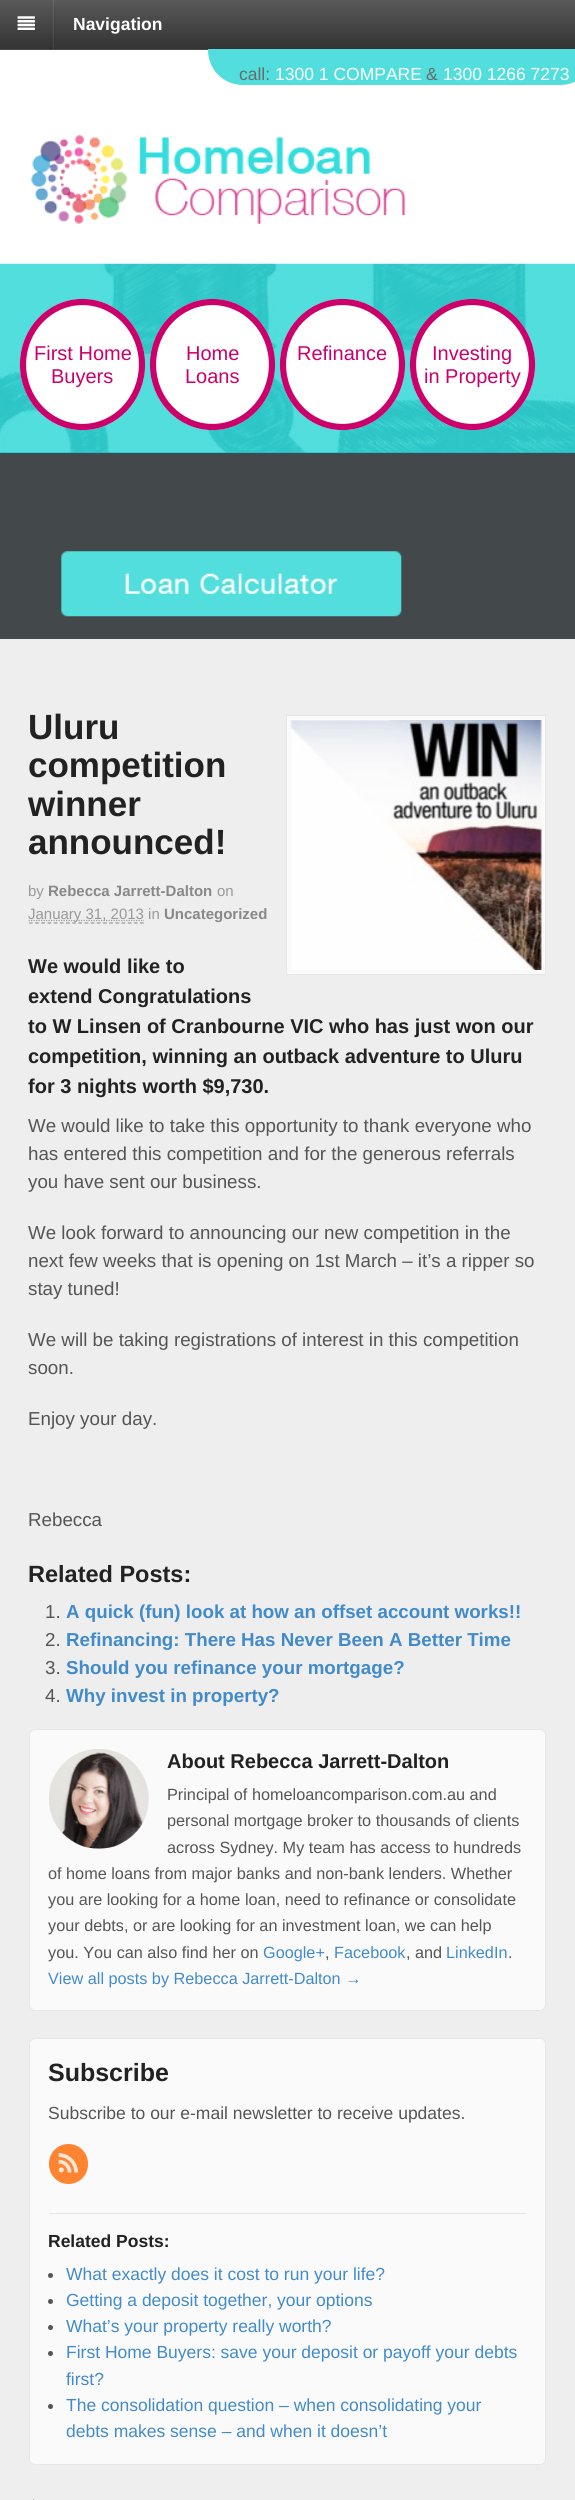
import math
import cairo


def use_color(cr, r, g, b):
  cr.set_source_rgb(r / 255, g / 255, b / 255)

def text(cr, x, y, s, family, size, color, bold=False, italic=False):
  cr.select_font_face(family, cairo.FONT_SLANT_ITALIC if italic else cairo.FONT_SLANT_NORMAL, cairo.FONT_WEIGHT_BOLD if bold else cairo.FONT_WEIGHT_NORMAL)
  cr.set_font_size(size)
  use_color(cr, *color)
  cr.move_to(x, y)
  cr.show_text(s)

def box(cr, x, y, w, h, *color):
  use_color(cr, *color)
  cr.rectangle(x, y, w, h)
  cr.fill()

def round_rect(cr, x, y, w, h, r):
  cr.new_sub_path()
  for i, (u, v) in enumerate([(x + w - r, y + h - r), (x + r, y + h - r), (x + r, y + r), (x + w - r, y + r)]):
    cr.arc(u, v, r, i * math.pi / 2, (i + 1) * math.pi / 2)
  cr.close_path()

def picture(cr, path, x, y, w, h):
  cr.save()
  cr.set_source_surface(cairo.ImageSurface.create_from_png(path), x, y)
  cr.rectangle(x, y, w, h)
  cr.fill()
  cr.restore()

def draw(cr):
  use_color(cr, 238, 238, 238)
  cr.paint()
  box(cr, 0, 50, 575, 214, 255, 255, 255)
  gradient = cairo.LinearGradient(288, 0, 288, 49)
  gradient.add_color_stop_rgba(0, 0.349, 0.349, 0.349, 1)
  gradient.add_color_stop_rgba(1, 0.2, 0.2, 0.2, 1)
  cr.set_source(gradient)
  cr.rectangle(0, 0, 575, 49)
  cr.fill()
  gradient = cairo.LinearGradient(288, 0, 288, 49)
  gradient.add_color_stop_rgba(0, 0.314, 0.314, 0.314, 1)
  gradient.add_color_stop_rgba(1, 0.18, 0.18, 0.18, 1)
  cr.set_source(gradient)
  cr.rectangle(54, 5, 1, 38)
  cr.fill()
  gradient = cairo.LinearGradient(288, 0, 288, 49)
  gradient.add_color_stop_rgba(0, 0.416, 0.416, 0.416, 1)
  gradient.add_color_stop_rgba(1, 0.278, 0.278, 0.278, 1)
  cr.set_source(gradient)
  cr.rectangle(53, 0, 1, 49)
  cr.fill()
  box(cr, 0, 49, 208, 1, 71, 71, 71)
  picture(cr, "img_01.png", 17, 16, 18, 14)
  picture(cr, "img_02.png", 31, 135, 375, 89)
  use_color(cr, 81, 222, 221)
  cr.new_path()
  cr.move_to(208, 49)
  cr.line_to(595, 49)
  cr.line_to(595, 50)
  cr.curve_to(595, 69.5, 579.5, 85, 560, 85)
  cr.line_to(243, 85)
  cr.curve_to(223.5, 85, 208, 69.5, 208, 50)
  cr.close_path()
  cr.fill()
  box(cr, 0, 452, 575, 1, 0, 185, 229)
  picture(cr, "img_03.png", 0, 263, 575, 190)
  use_color(cr, 255, 255, 255)
  cr.new_path()
  cr.move_to(82.5, 299)
  cr.curve_to(117, 299, 145, 328.5, 145, 364.5)
  cr.curve_to(145, 400.5, 117, 430, 82.5, 430)
  cr.curve_to(48, 430, 20, 400.5, 20, 364.5)
  cr.curve_to(20, 328.5, 48, 299, 82.5, 299)
  cr.close_path()
  cr.fill()
  cr.new_path()
  cr.move_to(82.5, 302)
  cr.curve_to(115.5, 302, 142, 330, 142, 364.5)
  cr.curve_to(142, 399, 115.5, 427, 82.5, 427)
  cr.curve_to(49.5, 427, 23, 399, 23, 364.5)
  cr.curve_to(23, 330, 49.5, 302, 82.5, 302)
  cr.close_path()
  use_color(cr, 204, 0, 107)
  cr.set_line_width(6.2)
  cr.stroke()
  use_color(cr, 255, 255, 255)
  cr.new_path()
  cr.move_to(212.5, 299)
  cr.curve_to(247, 299, 275, 328.5, 275, 364.5)
  cr.curve_to(275, 400.5, 247, 430, 212.5, 430)
  cr.curve_to(178, 430, 150, 400.5, 150, 364.5)
  cr.curve_to(150, 328.5, 178, 299, 212.5, 299)
  cr.close_path()
  cr.fill()
  cr.new_path()
  cr.move_to(212.5, 302)
  cr.curve_to(245.5, 302, 272, 330, 272, 364.5)
  cr.curve_to(272, 399, 245.5, 427, 212.5, 427)
  cr.curve_to(179.5, 427, 153, 399, 153, 364.5)
  cr.curve_to(153, 330, 179.5, 302, 212.5, 302)
  cr.close_path()
  use_color(cr, 204, 0, 107)
  cr.stroke()
  use_color(cr, 255, 255, 255)
  cr.new_path()
  cr.move_to(342.5, 299)
  cr.curve_to(377, 299, 405, 328.5, 405, 364.5)
  cr.curve_to(405, 400.5, 377, 430, 342.5, 430)
  cr.curve_to(308, 430, 280, 400.5, 280, 364.5)
  cr.curve_to(280, 328.5, 308, 299, 342.5, 299)
  cr.close_path()
  cr.fill()
  cr.new_path()
  cr.move_to(342.5, 302)
  cr.curve_to(375.5, 302, 402, 330, 402, 364.5)
  cr.curve_to(402, 399, 375.5, 427, 342.5, 427)
  cr.curve_to(309.5, 427, 283, 399, 283, 364.5)
  cr.curve_to(283, 330, 309.5, 302, 342.5, 302)
  cr.close_path()
  use_color(cr, 204, 0, 107)
  cr.stroke()
  use_color(cr, 255, 255, 255)
  cr.new_path()
  cr.move_to(472.5, 299)
  cr.curve_to(507, 299, 535, 328.5, 535, 364.5)
  cr.curve_to(535, 400.5, 507, 430, 472.5, 430)
  cr.curve_to(438, 430, 410, 400.5, 410, 364.5)
  cr.curve_to(410, 328.5, 438, 299, 472.5, 299)
  cr.close_path()
  cr.fill()
  cr.new_path()
  cr.move_to(472.5, 302)
  cr.curve_to(505.5, 302, 532, 330, 532, 364.5)
  cr.curve_to(532, 399, 505.5, 427, 472.5, 427)
  cr.curve_to(439.5, 427, 413, 399, 413, 364.5)
  cr.curve_to(413, 330, 439.5, 302, 472.5, 302)
  cr.close_path()
  use_color(cr, 204, 0, 107)
  cr.stroke()
  box(cr, 0, 453, 575, 186, 67, 72, 75)
  picture(cr, "img_04.png", 61, 551, 341, 66)
  use_color(cr, 250, 250, 250)
  cr.rectangle(286.5, 715.5, 259, 259)
  cr.fill_preserve()
  use_color(cr, 230, 230, 230)
  cr.set_line_width(1)
  cr.stroke()
  picture(cr, "img_05.png", 290, 720, 252, 250)
  cr.new_path()
  cr.move_to(29, 923)
  cr.line_to(144, 923)
  use_color(cr, 153, 153, 153)
  cr.set_line_width(1.2)
  cr.set_dash([3.75, 2.42])
  cr.stroke()
  cr.new_path()
  cr.move_to(28.5, 920.5)
  cr.line_to(144, 920.5)
  cr.set_dash([1.25, 1.25])
  cr.stroke()
  use_color(cr, 250, 250, 250)
  round_rect(cr, 29.5, 1729.5, 516, 281, 5.5)
  cr.fill_preserve()
  use_color(cr, 230, 230, 230)
  cr.set_line_width(1)
  cr.set_dash([])
  cr.stroke()
  picture(cr, "img_06.png", 49, 1749, 100, 100)
  use_color(cr, 250, 250, 250)
  round_rect(cr, 29.5, 2038.5, 516, 426, 5.5)
  cr.fill_preserve()
  use_color(cr, 230, 230, 230)
  cr.stroke()
  use_color(cr, 254, 132, 50)
  round_rect(cr, 49, 2144, 39, 40, 19.5)
  cr.fill()
  picture(cr, "img_07.png", 58, 2153, 20, 20)
  box(cr, 49, 2213, 477, 1, 230, 230, 230)
  use_color(cr, 85, 85, 85)
  cr.arc(50.5, 2275.5, 2.5, 0, 2 * math.pi)
  cr.fill()
  cr.arc(50.5, 2301.5, 2.5, 0, 2 * math.pi)
  cr.fill()
  cr.arc(50.5, 2327.5, 2.5, 0, 2 * math.pi)
  cr.fill()
  cr.arc(50.5, 2353.5, 2.5, 0, 2 * math.pi)
  cr.fill()
  cr.arc(50.5, 2406.5, 2.5, 0, 2 * math.pi)
  cr.fill()
  picture(cr, "img_08.png", 33, 2499, 2, 1)
  text(cr, 73, 30, "Navigation", "Liberation Sans", 17.5, (255, 255, 255), bold=True)
  text(cr, 239, 80, "call:", "Liberation Sans", 17.5, (106, 106, 106))
  text(cr, 275, 80, "1300 1 COMPARE", "Liberation Sans", 17.5, (255, 255, 255))
  text(cr, 426, 80, "&", "Liberation Sans", 17.5, (106, 106, 106))
  text(cr, 443, 80, "1300 1266 7273", "Liberation Sans", 17.5, (255, 255, 255))
  text(cr, 34, 360, "First Home", "Liberation Sans", 20, (204, 0, 107))
  text(cr, 51, 383, "Buyers", "Liberation Sans", 20, (204, 0, 107))
  text(cr, 186, 360, "Home", "Liberation Sans", 20, (204, 0, 107))
  text(cr, 185, 383, "Loans", "Liberation Sans", 20, (204, 0, 107))
  text(cr, 297, 360, "Refinance", "Liberation Sans", 20, (204, 0, 107))
  text(cr, 432, 360, "Investing", "Liberation Sans", 20, (204, 0, 107))
  text(cr, 424, 383, "in Property", "Liberation Sans", 20, (204, 0, 107))
  text(cr, 28, 739, "Uluru", "Liberation Sans", 35, (34, 34, 34), bold=True)
  text(cr, 28, 777, "competition", "Liberation Sans", 35, (34, 34, 34), bold=True)
  text(cr, 28, 816, "winner", "Liberation Sans", 35, (34, 34, 34), bold=True)
  text(cr, 28, 854, "announced!", "Liberation Sans", 35, (34, 34, 34), bold=True)
  text(cr, 28, 896, "by", "Liberation Sans", 15, (153, 153, 153))
  text(cr, 48, 896, "Rebecca Jarrett-Dalton", "Liberation Sans", 15, (136, 136, 136), bold=True)
  text(cr, 217, 896, "on", "Liberation Sans", 15, (153, 153, 153))
  text(cr, 28, 919, "January 31, 2013 in", "Liberation Sans", 15, (153, 153, 153))
  text(cr, 164, 919, "Uncategorized", "Liberation Sans", 15, (136, 136, 136), bold=True)
  text(cr, 28, 973, "We would like to", "Liberation Sans", 20, (34, 34, 34), bold=True)
  text(cr, 28, 1003, "extend Congratulations", "Liberation Sans", 20, (34, 34, 34), bold=True)
  text(cr, 28, 1033, "to W Linsen of Cranbourne VIC who has just won our", "Liberation Sans", 20, (34, 34, 34), bold=True)
  text(cr, 28, 1063, "competition, winning an outback adventure to Uluru", "Liberation Sans", 20, (34, 34, 34), bold=True)
  text(cr, 28, 1093, "for 3 nights worth $9,730.", "Liberation Sans", 20, (34, 34, 34), bold=True)
  text(cr, 28, 1132, "We would like to take this opportunity to thank everyone who", "Liberation Sans", 18.75, (85, 85, 85))
  text(cr, 28, 1160, "has entered this competition and for the generous referrals", "Liberation Sans", 18.75, (85, 85, 85))
  text(cr, 28, 1188, "you have sent our business.", "Liberation Sans", 18.75, (85, 85, 85))
  text(cr, 28, 1239, "We look forward to announcing our new competition in the", "Liberation Sans", 18.75, (85, 85, 85))
  text(cr, 28, 1267, "next few weeks that is opening on 1st March – it’s a ripper so", "Liberation Sans", 18.75, (85, 85, 85))
  text(cr, 28, 1295, "stay tuned!", "Liberation Sans", 18.75, (85, 85, 85))
  text(cr, 28, 1346, "We will be taking registrations of interest in this competition", "Liberation Sans", 18.75, (85, 85, 85))
  text(cr, 28, 1374, "soon.", "Liberation Sans", 18.75, (85, 85, 85))
  text(cr, 28, 1425, "Enjoy your day.", "Liberation Sans", 18.75, (85, 85, 85))
  text(cr, 28, 1526, "Rebecca", "Liberation Sans", 18.75, (85, 85, 85))
  text(cr, 28, 1582, "Related Posts:", "Liberation Sans", 23.5, (34, 34, 34), bold=True)
  text(cr, 45, 1618, "1.", "Liberation Sans", 18.75, (85, 85, 85))
  text(cr, 66, 1618, "A quick (fun) look at how an offset account works!!", "Liberation Sans", 18.75, (66, 139, 202), bold=True)
  text(cr, 45, 1646, "2.", "Liberation Sans", 18.75, (85, 85, 85))
  text(cr, 66, 1646, "Refinancing: There Has Never Been A Better Time", "Liberation Sans", 18.75, (66, 139, 202), bold=True)
  text(cr, 45, 1674, "3.", "Liberation Sans", 18.75, (85, 85, 85))
  text(cr, 66, 1674, "Should you refinance your mortgage?", "Liberation Sans", 18.75, (66, 139, 202), bold=True)
  text(cr, 45, 1702, "4.", "Liberation Sans", 18.75, (85, 85, 85))
  text(cr, 66, 1702, "Why invest in property?", "Liberation Sans", 18.75, (66, 139, 202), bold=True)
  text(cr, 167, 1768, "About Rebecca Jarrett-Dalton", "Liberation Sans", 20, (34, 34, 34), bold=True)
  text(cr, 167, 1800, "Principal of homeloancomparison.com.au and", "Liberation Sans", 16.25, (85, 85, 85))
  text(cr, 167, 1826, "personal mortgage broker to thousands of clients", "Liberation Sans", 16.25, (85, 85, 85))
  text(cr, 167, 1853, "across Sydney. My team has access to hundreds", "Liberation Sans", 16.25, (85, 85, 85))
  text(cr, 48, 1879, "of home loans from major banks and non-bank lenders. Whether", "Liberation Sans", 16.25, (85, 85, 85))
  text(cr, 48, 1905, "you are looking for a home loan, need to refinance or consolidate", "Liberation Sans", 16.25, (85, 85, 85))
  text(cr, 48, 1931, "your debts, or are looking for an investment loan, we can help", "Liberation Sans", 16.25, (85, 85, 85))
  text(cr, 48, 1958, "you. You can also find her on", "Liberation Sans", 16.25, (85, 85, 85))
  text(cr, 263, 1958, "Google+", "Liberation Sans", 16.25, (66, 139, 202))
  text(cr, 325, 1958, ",", "Liberation Sans", 16.25, (85, 85, 85))
  text(cr, 334, 1958, "Facebook", "Liberation Sans", 16.25, (66, 139, 202))
  text(cr, 406, 1958, ", and", "Liberation Sans", 16.25, (85, 85, 85))
  text(cr, 446, 1958, "LinkedIn", "Liberation Sans", 16.25, (66, 139, 202))
  text(cr, 508, 1958, ".", "Liberation Sans", 16.25, (85, 85, 85))
  text(cr, 48, 1984, "View all posts by Rebecca Jarrett-Dalton →", "Liberation Sans", 16.25, (66, 139, 202))
  text(cr, 48, 2081, "Subscribe", "Liberation Sans", 25, (34, 34, 34), bold=True)
  text(cr, 48, 2119, "Subscribe to our e-mail newsletter to receive updates.", "Liberation Sans", 17.5, (85, 85, 85))
  text(cr, 48, 2247, "Related Posts:", "Liberation Sans", 17.5, (34, 34, 34), bold=True)
  text(cr, 66, 2280, "What exactly does it cost to run your life?", "Liberation Sans", 17.5, (66, 139, 202))
  text(cr, 66, 2306, "Getting a deposit together, your options", "Liberation Sans", 17.5, (66, 139, 202))
  text(cr, 66, 2332, "What’s your property really worth?", "Liberation Sans", 17.5, (66, 139, 202))
  text(cr, 66, 2358, "First Home Buyers: save your deposit or payoff your debts", "Liberation Sans", 17.5, (66, 139, 202))
  text(cr, 66, 2385, "first?", "Liberation Sans", 17.5, (66, 139, 202))
  text(cr, 66, 2411, "The consolidation question – when consolidating your", "Liberation Sans", 17.5, (66, 139, 202))
  text(cr, 66, 2437, "debts makes sense – and when it doesn’t", "Liberation Sans", 17.5, (66, 139, 202))


surface = cairo.ImageSurface(cairo.FORMAT_RGB24, 575, 2500)
cr = cairo.Context(surface)
options = cairo.FontOptions()
options.set_hint_metrics(cairo.HINT_METRICS_OFF)
options.set_hint_style(cairo.HINT_STYLE_NONE)
cr.set_font_options(options)
cr.set_miter_limit(4)
draw(cr)
surface.write_to_png("out.png")
